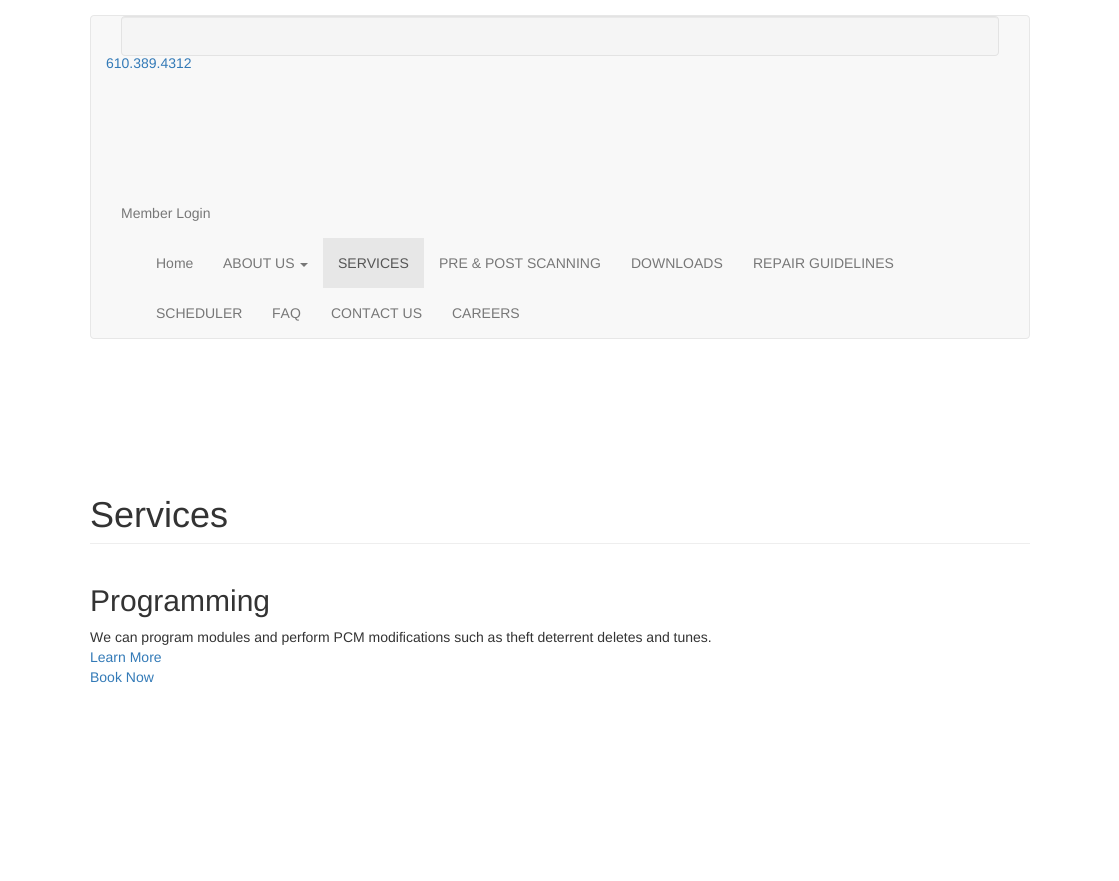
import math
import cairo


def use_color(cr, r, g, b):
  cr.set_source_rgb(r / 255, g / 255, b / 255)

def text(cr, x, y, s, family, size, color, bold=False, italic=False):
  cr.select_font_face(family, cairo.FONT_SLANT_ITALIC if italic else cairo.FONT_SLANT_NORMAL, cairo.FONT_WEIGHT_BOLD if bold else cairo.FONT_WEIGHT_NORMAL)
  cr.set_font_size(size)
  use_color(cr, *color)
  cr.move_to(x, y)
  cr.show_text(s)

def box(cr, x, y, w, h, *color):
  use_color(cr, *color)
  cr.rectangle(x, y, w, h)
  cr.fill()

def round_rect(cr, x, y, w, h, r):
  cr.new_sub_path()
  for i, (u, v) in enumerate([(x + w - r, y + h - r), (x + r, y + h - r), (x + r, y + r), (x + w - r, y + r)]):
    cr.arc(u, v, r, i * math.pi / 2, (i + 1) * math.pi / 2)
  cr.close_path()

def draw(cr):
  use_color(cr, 255, 255, 255)
  cr.paint()
  use_color(cr, 248, 248, 248)
  round_rect(cr, 90.5, 15.5, 939, 323, 3.5)
  cr.fill_preserve()
  use_color(cr, 231, 231, 231)
  cr.set_line_width(1)
  cr.stroke()
  use_color(cr, 245, 245, 245)
  round_rect(cr, 121, 16, 878, 40, 4)
  cr.fill()
  use_color(cr, 233, 233, 233)
  cr.new_path()
  cr.move_to(125, 18)
  cr.line_to(995, 18)
  cr.curve_to(997, 18, 998, 19, 998, 21)
  cr.curve_to(998, 19, 997, 17, 995, 17)
  cr.line_to(125, 17)
  cr.curve_to(123, 17, 122, 19, 122, 21)
  cr.curve_to(122, 19, 123, 18, 125, 18)
  cr.close_path()
  cr.fill()
  round_rect(cr, 121.5, 16.5, 877, 39, 3.5)
  use_color(cr, 227, 227, 227)
  cr.stroke()
  use_color(cr, 119, 119, 119)
  cr.new_path()
  cr.move_to(300, 263)
  cr.line_to(308, 263)
  cr.line_to(304, 267)
  cr.close_path()
  cr.fill()
  box(cr, 323, 238, 101, 50, 231, 231, 231)
  box(cr, 90, 543, 940, 1, 238, 238, 238)
  text(cr, 106, 68, "610.389.4312", "Liberation Sans", 14, (51, 122, 183))
  text(cr, 121, 218, "Member Login", "Liberation Sans", 14, (119, 119, 119))
  text(cr, 156, 268, "Home", "Liberation Sans", 14, (119, 119, 119))
  text(cr, 223, 268, "ABOUT US", "Liberation Sans", 14, (119, 119, 119))
  text(cr, 338, 268, "SERVICES", "Liberation Sans", 14, (85, 85, 85))
  text(cr, 439, 268, "PRE & POST SCANNING", "Liberation Sans", 14, (119, 119, 119))
  text(cr, 631, 268, "DOWNLOADS", "Liberation Sans", 14, (119, 119, 119))
  text(cr, 753, 268, "REPAIR GUIDELINES", "Liberation Sans", 14, (119, 119, 119))
  text(cr, 156, 318, "SCHEDULER", "Liberation Sans", 14, (119, 119, 119))
  text(cr, 272, 318, "FAQ", "Liberation Sans", 14, (119, 119, 119))
  text(cr, 331, 318, "CONTACT US", "Liberation Sans", 14, (119, 119, 119))
  text(cr, 452, 318, "CAREERS", "Liberation Sans", 14, (119, 119, 119))
  text(cr, 90, 527, "Services", "Liberation Sans", 36, (51, 51, 51))
  text(cr, 90, 611, "Programming", "Liberation Sans", 30, (51, 51, 51))
  text(cr, 90, 642, "We can program modules and perform PCM modifications such as theft deterrent deletes and tunes.", "Liberation Sans", 14, (51, 51, 51))
  text(cr, 90, 662, "Learn More", "Liberation Sans", 14, (51, 122, 183))
  text(cr, 90, 682, "Book Now", "Liberation Sans", 14, (51, 122, 183))


surface = cairo.ImageSurface(cairo.FORMAT_RGB24, 1119, 881)
cr = cairo.Context(surface)
options = cairo.FontOptions()
options.set_hint_metrics(cairo.HINT_METRICS_OFF)
options.set_hint_style(cairo.HINT_STYLE_NONE)
cr.set_font_options(options)
cr.set_miter_limit(4)
draw(cr)
surface.write_to_png("out.png")
